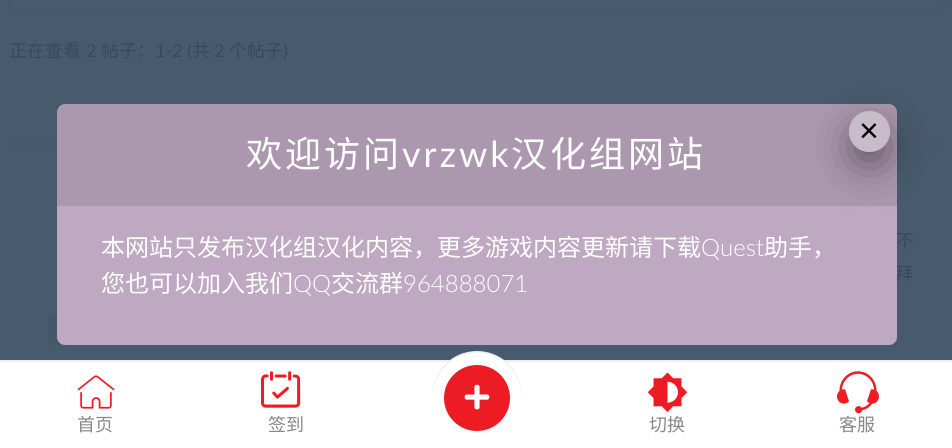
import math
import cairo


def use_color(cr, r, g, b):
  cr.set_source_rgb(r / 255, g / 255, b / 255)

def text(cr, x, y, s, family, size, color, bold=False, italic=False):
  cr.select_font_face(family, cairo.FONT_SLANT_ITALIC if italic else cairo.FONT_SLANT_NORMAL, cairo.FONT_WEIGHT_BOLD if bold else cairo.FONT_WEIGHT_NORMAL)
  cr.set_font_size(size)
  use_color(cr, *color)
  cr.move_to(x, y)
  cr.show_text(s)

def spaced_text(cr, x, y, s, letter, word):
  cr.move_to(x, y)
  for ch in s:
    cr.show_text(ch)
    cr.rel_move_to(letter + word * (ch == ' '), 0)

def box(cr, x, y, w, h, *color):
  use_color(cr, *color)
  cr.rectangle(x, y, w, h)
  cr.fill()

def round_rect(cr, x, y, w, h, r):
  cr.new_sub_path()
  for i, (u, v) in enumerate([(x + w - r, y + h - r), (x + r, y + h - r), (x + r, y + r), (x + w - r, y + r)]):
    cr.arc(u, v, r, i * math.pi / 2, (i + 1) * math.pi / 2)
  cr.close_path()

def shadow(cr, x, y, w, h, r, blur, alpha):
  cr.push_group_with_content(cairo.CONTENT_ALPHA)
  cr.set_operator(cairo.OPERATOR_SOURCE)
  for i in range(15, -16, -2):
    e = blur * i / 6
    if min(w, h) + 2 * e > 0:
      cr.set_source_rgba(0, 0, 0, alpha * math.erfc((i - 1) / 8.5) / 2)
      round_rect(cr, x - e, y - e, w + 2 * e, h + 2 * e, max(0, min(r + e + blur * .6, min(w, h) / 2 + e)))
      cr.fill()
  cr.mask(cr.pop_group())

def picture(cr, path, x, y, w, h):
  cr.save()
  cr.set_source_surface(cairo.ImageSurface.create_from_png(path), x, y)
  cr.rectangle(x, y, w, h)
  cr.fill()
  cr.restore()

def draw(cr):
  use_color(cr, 72, 91, 110)
  cr.paint()
  round_rect(cr, 9, -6, 935, 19, 4)
  use_color(cr, 67, 88, 109)
  cr.stroke()
  box(cr, 9, 143, 935, 2, 69, 88, 107)
  picture(cr, "img_01.png", 48, 314, 17, 31)
  box(cr, 0, 362, 952, 86, 255, 255, 255)
  box(cr, 0, 360, 952, 2, 238, 238, 238)
  picture(cr, "img_02.png", 77, 375, 38, 34)
  picture(cr, "img_03.png", 261, 371, 40, 37)
  cr.arc(477, 396, 44, 0, 2 * math.pi)
  use_color(cr, 239, 239, 239)
  cr.stroke()
  use_color(cr, 255, 255, 255)
  cr.new_path()
  cr.move_to(477, 352.5)
  cr.curve_to(502, 352.5, 522, 373.5, 522, 399)
  cr.curve_to(522, 424.5, 502, 445.5, 477, 445.5)
  cr.curve_to(452, 445.5, 432, 424.5, 432, 399)
  cr.curve_to(432, 373.5, 452, 352.5, 477, 352.5)
  cr.close_path()
  cr.fill()
  use_color(cr, 237, 28, 36)
  cr.arc(477, 398, 33, 0, 2 * math.pi)
  cr.fill()
  picture(cr, "img_04.png", 464, 384, 26, 26)
  picture(cr, "img_05.png", 647, 372, 41, 40)
  picture(cr, "img_06.png", 837, 371, 42, 43)
  text(cr, 9, 57, "正在查看", "Noto Sans CJK SC", 18, (55, 74, 93))
  text(cr, 86, 57, "2", "Lato", 18, (55, 74, 93))
  text(cr, 101, 57, "帖子：", "Noto Sans CJK SC", 18, (55, 74, 93))
  text(cr, 155, 57, "1-2 (", "Lato", 18, (55, 74, 93))
  text(cr, 192, 57, "共", "Noto Sans CJK SC", 18, (55, 74, 93))
  text(cr, 214, 57, "2", "Lato", 18, (55, 74, 93))
  text(cr, 229, 57, "个帖子", "Noto Sans CJK SC", 18, (55, 74, 93))
  text(cr, 283, 57, ")", "Lato", 18, (55, 74, 93))
  text(cr, 896, 247, "不", "Noto Sans CJK SC", 18, (55, 74, 93))
  text(cr, 895, 280, "拜", "Noto Sans CJK SC", 18, (55, 74, 93))
  text(cr, 77, 431, "首页", "Noto Sans CJK SC", 18, (136, 136, 136))
  text(cr, 268, 431, "签到", "Noto Sans CJK SC", 18, (136, 136, 136))
  text(cr, 649, 431, "切换", "Noto Sans CJK SC", 18, (136, 136, 136))
  text(cr, 839, 431, "客服", "Noto Sans CJK SC", 18, (136, 136, 136))
  use_color(cr, 191, 168, 193)
  round_rect(cr, 57, 104, 840, 241, 8)
  cr.fill()
  cr.set_source_rgba(0, 0, 0, 0.1)
  cr.new_path()
  cr.move_to(62, 104)
  cr.line_to(892, 104)
  cr.curve_to(895, 104, 897, 106, 897, 109)
  cr.line_to(897, 206)
  cr.line_to(57, 206)
  cr.line_to(57, 109)
  cr.curve_to(57, 106, 59, 104, 62, 104)
  cr.close_path()
  cr.fill()
  cr.save()
  cr.set_fill_rule(cairo.FILL_RULE_EVEN_ODD)
  cr.new_path()
  cr.move_to(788, 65)
  cr.line_to(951, 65)
  cr.line_to(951, 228)
  cr.line_to(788, 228)
  cr.close_path()
  cr.move_to(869.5, 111)
  cr.curve_to(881, 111, 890, 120, 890, 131.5)
  cr.curve_to(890, 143, 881, 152, 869.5, 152)
  cr.curve_to(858, 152, 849, 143, 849, 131.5)
  cr.curve_to(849, 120, 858, 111, 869.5, 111)
  cr.close_path()
  cr.clip()
  use_color(cr, 0, 0, 0)
  shadow(cr, 857, 134, 25, 25, 12.5, 22.5, 0.5)
  cr.restore()
  cr.set_source_rgba(1, 1, 1, 0.35)
  cr.arc(869.5, 131.5, 20.5, 0, 2 * math.pi)
  cr.fill()
  text(cr, 859, 142, "×", "Liberation Sans", 34, (0, 0, 0))
  cr.select_font_face("Noto Sans CJK SC")
  cr.set_font_size(36)
  use_color(cr, 255, 255, 255)
  spaced_text(cr, 246, 167, "欢迎访问", 3, 0)
  cr.select_font_face("Lato")
  spaced_text(cr, 402, 167, "vrzwk", 3, 0)
  cr.select_font_face("Noto Sans CJK SC")
  spaced_text(cr, 511, 167, "汉化组网站", 3, 0)
  text(cr, 101, 256, "本网站只发布汉化组汉化内容，更多游戏内容更新请下载", "Noto Sans CJK SC", 24, (255, 255, 255))
  text(cr, 701, 256, "Quest", "Lato Light", 24, (255, 255, 255))
  text(cr, 764, 256, "助手，", "Noto Sans CJK SC", 24, (255, 255, 255))
  text(cr, 101, 292, "您也可以加入我们", "Noto Sans CJK SC", 24, (255, 255, 255))
  text(cr, 293, 292, "QQ", "Lato Light", 24, (255, 255, 255))
  text(cr, 331, 292, "交流群", "Noto Sans CJK SC", 24, (255, 255, 255))
  text(cr, 403, 292, "964888071", "Lato Light", 24, (255, 255, 255))


surface = cairo.ImageSurface(cairo.FORMAT_RGB24, 952, 448)
cr = cairo.Context(surface)
options = cairo.FontOptions()
options.set_hint_metrics(cairo.HINT_METRICS_OFF)
options.set_hint_style(cairo.HINT_STYLE_NONE)
cr.set_font_options(options)
cr.set_miter_limit(4)
draw(cr)
surface.write_to_png("out.png")
